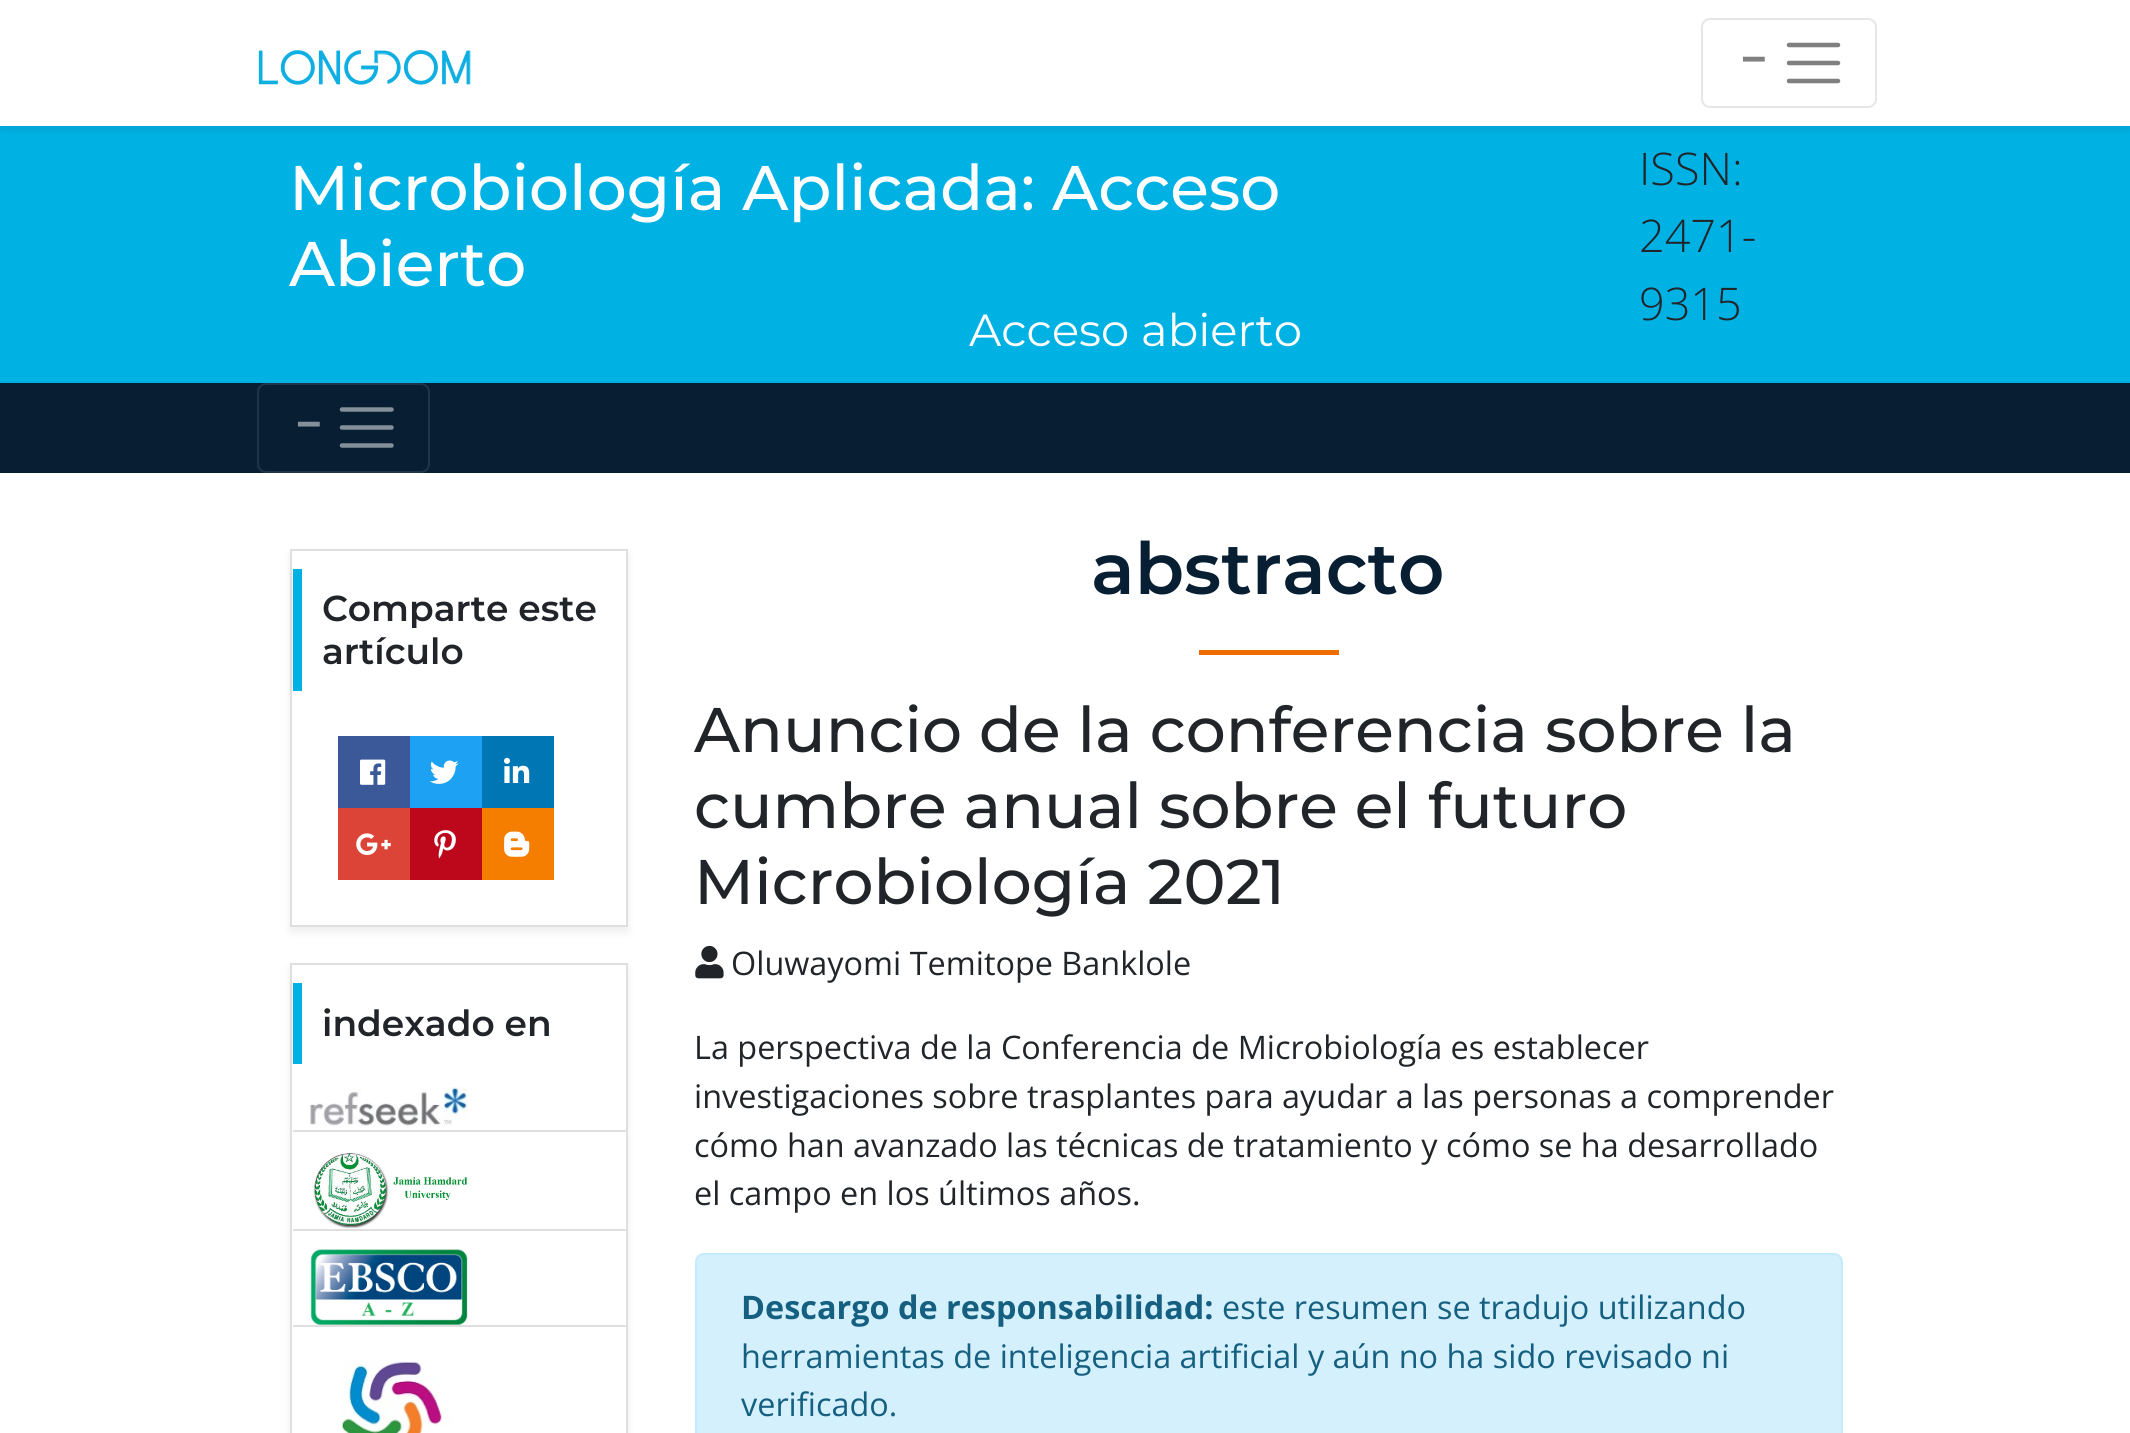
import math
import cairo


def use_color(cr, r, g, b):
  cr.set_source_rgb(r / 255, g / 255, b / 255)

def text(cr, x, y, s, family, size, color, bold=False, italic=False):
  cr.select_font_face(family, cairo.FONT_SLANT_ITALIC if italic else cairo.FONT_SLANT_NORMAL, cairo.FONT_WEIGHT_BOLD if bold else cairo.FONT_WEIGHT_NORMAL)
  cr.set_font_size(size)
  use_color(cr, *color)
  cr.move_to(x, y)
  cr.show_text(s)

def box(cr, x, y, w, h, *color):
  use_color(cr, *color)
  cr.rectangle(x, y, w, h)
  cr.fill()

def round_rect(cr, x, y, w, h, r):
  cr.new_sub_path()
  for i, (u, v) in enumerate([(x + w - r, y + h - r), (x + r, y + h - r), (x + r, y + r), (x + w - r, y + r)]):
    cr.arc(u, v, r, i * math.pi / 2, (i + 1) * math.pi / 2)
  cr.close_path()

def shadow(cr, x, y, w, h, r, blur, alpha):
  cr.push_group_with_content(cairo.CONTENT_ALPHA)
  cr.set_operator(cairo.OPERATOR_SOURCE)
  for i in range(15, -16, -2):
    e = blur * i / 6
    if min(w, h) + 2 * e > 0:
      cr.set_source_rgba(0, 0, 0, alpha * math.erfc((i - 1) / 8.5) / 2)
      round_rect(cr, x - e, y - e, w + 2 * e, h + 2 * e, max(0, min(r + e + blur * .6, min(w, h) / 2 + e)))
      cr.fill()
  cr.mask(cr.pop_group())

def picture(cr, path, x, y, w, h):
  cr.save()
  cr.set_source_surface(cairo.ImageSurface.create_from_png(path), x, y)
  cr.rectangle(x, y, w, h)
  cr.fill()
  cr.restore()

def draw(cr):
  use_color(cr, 255, 255, 255)
  cr.paint()
  box(cr, 0, 126, 2130, 257, 0, 177, 228)
  cr.save()
  cr.rectangle(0, 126, 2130, 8)
  cr.clip()
  use_color(cr, 0, 0, 0)
  shadow(cr, 0, 5, 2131, 126, 0, 4.5, 0.07)
  cr.restore()
  picture(cr, "img_01.png", 258, 50, 213, 35)
  round_rect(cr, 1702, 19, 174, 88, 8)
  use_color(cr, 230, 230, 230)
  cr.stroke()
  cr.new_path()
  cr.move_to(1789, 45)
  cr.line_to(1838, 45)
  cr.move_to(1789, 63)
  cr.line_to(1838, 63)
  cr.move_to(1789, 81)
  cr.line_to(1838, 81)
  use_color(cr, 128, 128, 128)
  cr.set_line_width(4.5)
  cr.set_line_cap(cairo.LINE_CAP_ROUND)
  cr.stroke()
  box(cr, 0, 383, 2130, 90, 7, 30, 51)
  round_rect(cr, 258, 384, 171, 88, 8)
  use_color(cr, 32, 53, 71)
  cr.set_line_width(2)
  cr.set_line_cap(cairo.LINE_CAP_BUTT)
  cr.stroke()
  cr.new_path()
  cr.move_to(342, 409.5)
  cr.line_to(391.5, 409.5)
  cr.move_to(342, 427.5)
  cr.line_to(391.5, 427.5)
  cr.move_to(342, 445.5)
  cr.line_to(391.5, 445.5)
  use_color(cr, 131, 143, 153)
  cr.set_line_width(4.5)
  cr.set_line_cap(cairo.LINE_CAP_ROUND)
  cr.stroke()
  use_color(cr, 0, 0, 0)
  shadow(cr, 290, 554, 338, 378, 0, 4.5, 0.07)
  use_color(cr, 255, 255, 255)
  cr.rectangle(291, 550, 336, 376)
  cr.fill_preserve()
  use_color(cr, 223, 223, 223)
  cr.set_line_width(2)
  cr.set_line_cap(cairo.LINE_CAP_BUTT)
  cr.stroke()
  box(cr, 293, 569, 9, 122, 0, 177, 228)
  box(cr, 338, 736, 72, 72, 59, 89, 152)
  picture(cr, "img_02.png", 360, 759, 26, 26)
  box(cr, 410, 736, 72, 72, 29, 161, 242)
  picture(cr, "img_03.png", 430, 760, 29, 24)
  box(cr, 482, 736, 72, 72, 0, 119, 181)
  picture(cr, "img_04.png", 504, 757, 26, 26)
  box(cr, 338, 808, 72, 72, 219, 68, 55)
  picture(cr, "img_05.png", 356, 833, 35, 22)
  box(cr, 410, 808, 72, 72, 189, 8, 28)
  picture(cr, "img_06.png", 434, 830, 22, 29)
  box(cr, 482, 808, 72, 72, 245, 125, 0)
  picture(cr, "img_07.png", 504, 831, 26, 26)
  use_color(cr, 0, 0, 0)
  shadow(cr, 290, 968, 338, 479, 0, 4.5, 0.07)
  use_color(cr, 255, 255, 255)
  cr.rectangle(291, 964, 336, 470)
  cr.fill_preserve()
  use_color(cr, 223, 223, 223)
  cr.stroke()
  box(cr, 293, 983, 9, 81, 0, 177, 228)
  picture(cr, "img_08.png", 310, 1087, 158, 39)
  box(cr, 293, 1130, 333, 2, 223, 223, 223)
  picture(cr, "img_09.png", 313, 1153, 155, 76)
  box(cr, 293, 1229, 333, 2, 223, 223, 223)
  picture(cr, "img_10.png", 310, 1249, 158, 76)
  box(cr, 293, 1325, 333, 2, 223, 223, 223)
  picture(cr, "img_11.png", 341, 1361, 112, 72)
  box(cr, 1199, 650, 140, 5, 239, 108, 0)
  picture(cr, "img_12.png", 695, 945, 29, 34)
  use_color(cr, 212, 240, 253)
  round_rect(cr, 696, 1254, 1146, 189, 8)
  cr.fill_preserve()
  use_color(cr, 195, 235, 252)
  cr.stroke()
  text(cr, 1741, 75, "−", "Open Sans", 45, (128, 128, 128), bold=True)
  text(cr, 289, 210, "Microbiología Aplicada: Acceso", "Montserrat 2 Thin", 63, (255, 255, 255))
  text(cr, 289, 286, "Abierto", "Montserrat 2 Thin", 63, (255, 255, 255))
  text(cr, 969, 346, "Acceso abierto", "Montserrat Thin", 45, (255, 255, 255))
  text(cr, 1639, 185, "ISSN:", "Open Sans Light", 45, (33, 37, 41))
  text(cr, 1639, 252, "2471-", "Open Sans Light", 45, (33, 37, 41))
  text(cr, 1639, 320, "9315", "Open Sans Light", 45, (33, 37, 41))
  text(cr, 296, 440, "−", "Open Sans", 45, (131, 143, 153), bold=True)
  text(cr, 322, 621, "Comparte este", "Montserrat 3 Thin", 36, (33, 37, 41))
  text(cr, 322, 664, "artículo", "Montserrat 3 Thin", 36, (33, 37, 41))
  text(cr, 322, 1036, "indexado en", "Montserrat 3 Thin", 36, (33, 37, 41))
  text(cr, 1091, 594, "abstracto", "Montserrat 3 Thin", 72, (7, 30, 51))
  text(cr, 694, 752, "Anuncio de la conferencia sobre la", "Montserrat 2 Thin", 63, (33, 37, 41))
  text(cr, 694, 828, "cumbre anual sobre el futuro", "Montserrat 2 Thin", 63, (33, 37, 41))
  text(cr, 694, 904, "Microbiología 2021", "Montserrat 2 Thin", 63, (33, 37, 41))
  text(cr, 731, 975, "Oluwayomi Temitope Banklole", "Open Sans", 32.4, (33, 37, 41))
  text(cr, 694, 1059, "La perspectiva de la Conferencia de Microbiología es establecer", "Open Sans", 32.4, (33, 37, 41))
  text(cr, 694, 1108, "investigaciones sobre trasplantes para ayudar a las personas a comprender", "Open Sans", 32.4, (33, 37, 41))
  text(cr, 694, 1157, "cómo han avanzado las técnicas de tratamiento y cómo se ha desarrollado", "Open Sans", 32.4, (33, 37, 41))
  text(cr, 694, 1205, "el campo en los últimos años.", "Open Sans", 32.4, (33, 37, 41))
  text(cr, 741, 1319, "Descargo de responsabilidad:", "Open Sans", 32.4, (21, 95, 128), bold=True)
  text(cr, 1222, 1319, "este resumen se tradujo utilizando", "Open Sans", 32.4, (21, 95, 128))
  text(cr, 741, 1368, "herramientas de inteligencia artificial y aún no ha sido revisado ni", "Open Sans", 32.4, (21, 95, 128))
  text(cr, 741, 1416, "verificado.", "Open Sans", 32.4, (21, 95, 128))


surface = cairo.ImageSurface(cairo.FORMAT_RGB24, 2130, 1433)
cr = cairo.Context(surface)
options = cairo.FontOptions()
options.set_hint_metrics(cairo.HINT_METRICS_OFF)
options.set_hint_style(cairo.HINT_STYLE_NONE)
cr.set_font_options(options)
cr.set_miter_limit(4)
draw(cr)
surface.write_to_png("out.png")
